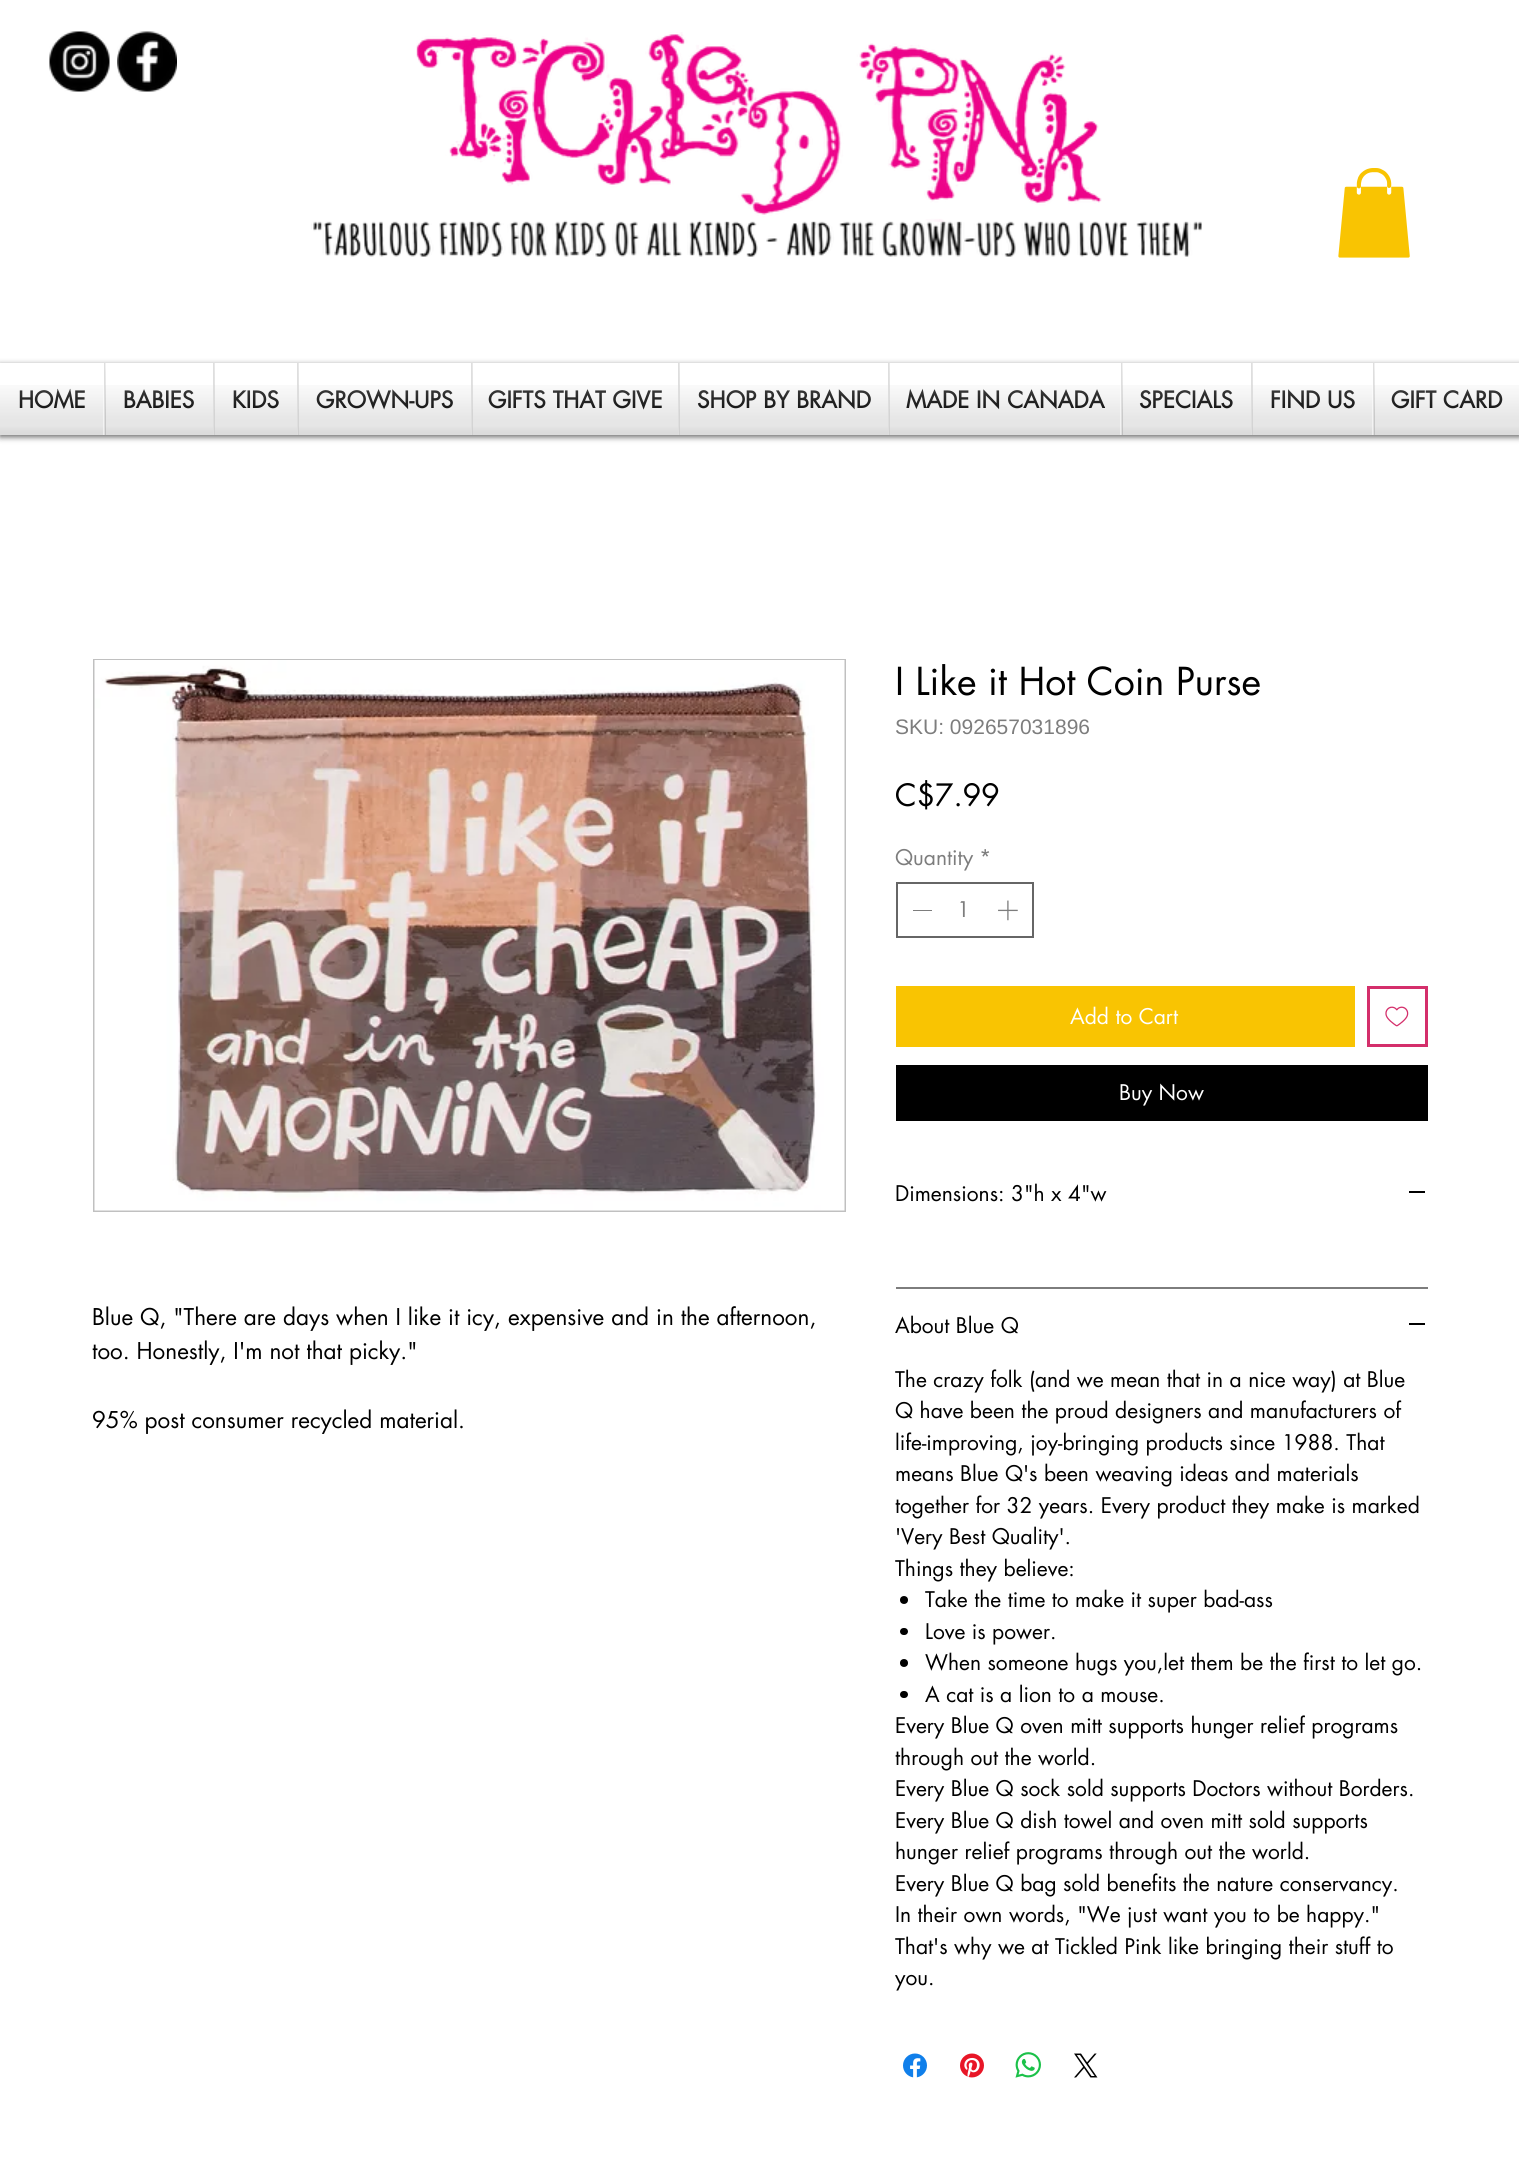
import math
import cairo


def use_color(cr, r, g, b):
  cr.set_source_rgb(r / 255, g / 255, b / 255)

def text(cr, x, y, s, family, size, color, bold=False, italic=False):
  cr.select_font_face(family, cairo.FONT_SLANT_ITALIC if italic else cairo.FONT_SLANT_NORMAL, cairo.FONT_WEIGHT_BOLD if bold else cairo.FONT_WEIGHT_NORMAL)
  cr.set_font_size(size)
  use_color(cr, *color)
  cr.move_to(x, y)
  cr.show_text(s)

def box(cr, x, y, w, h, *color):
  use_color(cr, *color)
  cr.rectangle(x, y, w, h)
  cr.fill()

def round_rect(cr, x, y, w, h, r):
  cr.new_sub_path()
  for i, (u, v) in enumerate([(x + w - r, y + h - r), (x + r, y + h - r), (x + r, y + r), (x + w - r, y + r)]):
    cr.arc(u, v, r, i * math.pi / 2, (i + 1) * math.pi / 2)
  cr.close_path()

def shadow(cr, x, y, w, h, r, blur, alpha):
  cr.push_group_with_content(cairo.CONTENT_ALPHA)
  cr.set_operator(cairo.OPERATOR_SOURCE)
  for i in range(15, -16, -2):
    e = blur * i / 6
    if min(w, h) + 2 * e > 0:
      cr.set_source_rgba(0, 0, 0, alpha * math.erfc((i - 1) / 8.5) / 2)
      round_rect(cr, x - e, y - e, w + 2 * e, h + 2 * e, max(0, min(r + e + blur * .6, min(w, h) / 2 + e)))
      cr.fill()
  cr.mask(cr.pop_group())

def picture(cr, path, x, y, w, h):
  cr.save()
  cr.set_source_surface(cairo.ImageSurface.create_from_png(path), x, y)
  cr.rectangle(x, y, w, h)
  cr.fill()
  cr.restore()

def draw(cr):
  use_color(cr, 255, 255, 255)
  cr.paint()
  picture(cr, "img_01.png", 49, 31, 61, 61)
  picture(cr, "img_02.png", 117, 31, 60, 61)
  picture(cr, "img_03.png", 416, 32, 686, 190)
  picture(cr, "img_04.png", 1338, 168, 72, 90)
  picture(cr, "img_05.png", 311, 220, 891, 37)
  use_color(cr, 0, 0, 0)
  shadow(cr, 0, 365, 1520, 72, 0, 3, 0.6)
  box(cr, 0, 363, 104, 72, 255, 255, 255)
  box(cr, 106, 363, 107, 72, 255, 255, 255)
  box(cr, 104, 363, 2, 72, 222, 222, 222)
  box(cr, 215, 363, 82, 72, 255, 255, 255)
  box(cr, 213, 363, 2, 72, 222, 222, 222)
  box(cr, 299, 363, 172, 72, 255, 255, 255)
  box(cr, 297, 363, 2, 72, 222, 222, 222)
  box(cr, 473, 363, 205, 72, 255, 255, 255)
  box(cr, 471, 363, 2, 72, 222, 222, 222)
  box(cr, 680, 363, 208, 72, 255, 255, 255)
  box(cr, 678, 363, 2, 72, 222, 222, 222)
  box(cr, 890, 363, 231, 72, 255, 255, 255)
  box(cr, 888, 363, 2, 72, 222, 222, 222)
  box(cr, 1123, 363, 128, 72, 255, 255, 255)
  box(cr, 1121, 363, 2, 72, 222, 222, 222)
  box(cr, 1253, 363, 120, 72, 255, 255, 255)
  box(cr, 1251, 363, 2, 72, 222, 222, 222)
  box(cr, 1375, 363, 144, 72, 255, 255, 255)
  box(cr, 1373, 363, 2, 72, 222, 222, 222)
  cr.rectangle(94, 660, 751, 551)
  use_color(cr, 192, 192, 192)
  cr.stroke()
  picture(cr, "img_26.png", 94, 660, 751, 551)
  cr.rectangle(897, 883, 136, 54)
  use_color(cr, 102, 102, 102)
  cr.stroke()
  box(cr, 913, 910, 19, 1, 125, 125, 125)
  picture(cr, "img_27.png", 998, 900, 20, 21)
  box(cr, 896, 986, 459, 61, 249, 196, 2)
  cr.rectangle(1368.5, 987.5, 58, 58)
  use_color(cr, 212, 47, 107)
  cr.set_line_width(3)
  cr.stroke()
  picture(cr, "img_28.png", 1385, 1006, 24, 21)
  box(cr, 896, 1065, 532, 56, 0, 0, 0)
  box(cr, 896, 1287, 532, 2, 125, 125, 125)
  box(cr, 1409, 1191, 16, 2, 0, 0, 0)
  box(cr, 1409, 1323, 16, 2, 0, 0, 0)
  cr.arc(904, 1600, 4, 0, 2 * math.pi)
  cr.fill()
  round_rect(cr, 900, 1628, 8, 7, 3.5)
  cr.fill()
  cr.arc(904, 1663, 4, 0, 2 * math.pi)
  cr.fill()
  round_rect(cr, 900, 1691, 8, 7, 3.5)
  cr.fill()
  picture(cr, "img_29.png", 903, 2053, 24, 25)
  picture(cr, "img_30.png", 960, 2053, 24, 25)
  picture(cr, "img_31.png", 1015, 2052, 26, 26)
  picture(cr, "img_32.png", 1074, 2053, 24, 25)
  text(cr, 18, 408, "HOME", "futura", 22.5, (0, 0, 0), bold=True)
  picture(cr, "img_06.png", 19, 390, 65, 19)
  picture(cr, "img_07.png", 0, 385, 104, 50)
  text(cr, 123, 408, "BABIES", "futura", 22.5, (0, 0, 0), bold=True)
  picture(cr, "img_08.png", 105, 363, 89, 46)
  picture(cr, "img_09.png", 105, 385, 108, 50)
  text(cr, 232, 408, "KIDS", "futura", 22.5, (0, 0, 0), bold=True)
  picture(cr, "img_10.png", 214, 363, 64, 46)
  picture(cr, "img_11.png", 214, 385, 83, 50)
  text(cr, 316, 408, "GROWN-UPS", "futura", 22.5, (0, 0, 0), bold=True)
  picture(cr, "img_12.png", 298, 363, 155, 46)
  picture(cr, "img_13.png", 298, 385, 173, 50)
  text(cr, 488, 408, "GIFTS THAT GIVE", "futura", 22.5, (0, 0, 0), bold=True)
  picture(cr, "img_14.png", 472, 363, 189, 46)
  picture(cr, "img_15.png", 472, 385, 206, 50)
  text(cr, 697, 408, "SHOP BY BRAND", "futura", 22.5, (0, 0, 0), bold=True)
  picture(cr, "img_16.png", 679, 363, 191, 46)
  picture(cr, "img_17.png", 679, 385, 209, 50)
  text(cr, 906, 408, "MADE IN CANADA", "futura", 22.5, (0, 0, 0), bold=True)
  picture(cr, "img_18.png", 889, 363, 215, 46)
  picture(cr, "img_19.png", 889, 385, 232, 50)
  text(cr, 1139, 408, "SPECIALS", "futura", 22.5, (0, 0, 0), bold=True)
  picture(cr, "img_20.png", 1122, 363, 111, 46)
  picture(cr, "img_21.png", 1122, 385, 129, 50)
  text(cr, 1270, 408, "FIND US", "futura", 22.5, (0, 0, 0), bold=True)
  picture(cr, "img_22.png", 1252, 363, 102, 46)
  picture(cr, "img_23.png", 1252, 385, 121, 50)
  text(cr, 1391, 408, "GIFT CARD", "futura", 22.5, (0, 0, 0), bold=True)
  picture(cr, "img_24.png", 1374, 363, 128, 46)
  picture(cr, "img_25.png", 1374, 385, 145, 50)
  text(cr, 92, 1325, "Blue Q, \"There are days when I like it icy, expensive and in the afternoon,", "futura", 22.5, (0, 0, 0))
  text(cr, 92, 1359, "too. Honestly, I'm not that picky.\"", "futura", 22.5, (0, 0, 0))
  text(cr, 92, 1428, "95% post consumer recycled material.", "futura", 22.5, (0, 0, 0))
  text(cr, 895, 695, "I Like it Hot Coin Purse", "futura", 37.5, (0, 0, 0))
  text(cr, 895, 734, "SKU: 092657031896", "Liberation Sans", 21, (125, 125, 125))
  text(cr, 895, 806, "C$7.99", "futura", 30, (0, 0, 0))
  text(cr, 895, 865, "Quantity", "futura", 21, (125, 125, 125))
  text(cr, 979, 865, "*", "futura", 21, (125, 125, 125))
  text(cr, 957, 917, "1", "futura", 21, (125, 125, 125))
  text(cr, 1070, 1024, "Add to Cart", "futura", 21, (255, 255, 255))
  text(cr, 1119, 1100, "Buy Now", "futura", 21, (255, 255, 255))
  text(cr, 895, 1201, "Dimensions: 3\"h x 4\"w", "futura", 21, (0, 0, 0))
  text(cr, 895, 1333, "About Blue Q", "futura", 21, (0, 0, 0))
  text(cr, 895, 1387, "The crazy folk (and we mean that in a nice way) at Blue", "futura", 21, (0, 0, 0))
  text(cr, 895, 1418, "Q have been the proud designers and manufacturers of", "futura", 21, (0, 0, 0))
  text(cr, 895, 1450, "life-improving, joy-bringing products since 1988. That", "futura", 21, (0, 0, 0))
  text(cr, 895, 1481, "means Blue Q's been weaving ideas and materials", "futura", 21, (0, 0, 0))
  text(cr, 895, 1513, "together for 32 years. Every product they make is marked", "futura", 21, (0, 0, 0))
  text(cr, 895, 1544, "'Very Best Quality'.", "futura", 21, (0, 0, 0))
  text(cr, 895, 1576, "Things they believe:", "futura", 21, (0, 0, 0))
  text(cr, 925, 1607, "Take the time to make it super bad-ass", "futura", 21, (0, 0, 0))
  text(cr, 925, 1639, "Love is power.", "futura", 21, (0, 0, 0))
  text(cr, 925, 1670, "When someone hugs you,let them be the first to let go.", "futura", 21, (0, 0, 0))
  text(cr, 925, 1702, "A cat is a lion to a mouse.", "futura", 21, (0, 0, 0))
  text(cr, 895, 1733, "Every Blue Q oven mitt supports hunger relief programs", "futura", 21, (0, 0, 0))
  text(cr, 895, 1765, "through out the world.", "futura", 21, (0, 0, 0))
  text(cr, 895, 1796, "Every Blue Q sock sold supports Doctors without Borders.", "futura", 21, (0, 0, 0))
  text(cr, 895, 1828, "Every Blue Q dish towel and oven mitt sold supports", "futura", 21, (0, 0, 0))
  text(cr, 895, 1859, "hunger relief programs through out the world.", "futura", 21, (0, 0, 0))
  text(cr, 895, 1891, "Every Blue Q bag sold benefits the nature conservancy.", "futura", 21, (0, 0, 0))
  text(cr, 895, 1922, "In their own words, \"We just want you to be happy.\"", "futura", 21, (0, 0, 0))
  text(cr, 895, 1954, "That's why we at Tickled Pink like bringing their stuff to", "futura", 21, (0, 0, 0))
  text(cr, 895, 1985, "you.", "futura", 21, (0, 0, 0))


surface = cairo.ImageSurface(cairo.FORMAT_RGB24, 1519, 2183)
cr = cairo.Context(surface)
options = cairo.FontOptions()
options.set_hint_metrics(cairo.HINT_METRICS_OFF)
options.set_hint_style(cairo.HINT_STYLE_NONE)
cr.set_font_options(options)
cr.set_miter_limit(4)
draw(cr)
surface.write_to_png("out.png")
